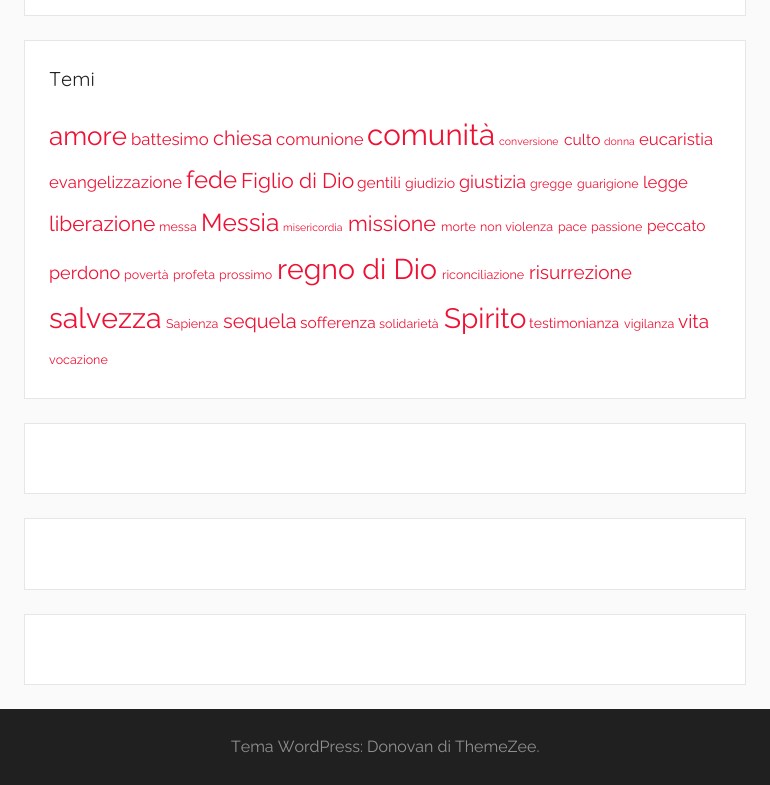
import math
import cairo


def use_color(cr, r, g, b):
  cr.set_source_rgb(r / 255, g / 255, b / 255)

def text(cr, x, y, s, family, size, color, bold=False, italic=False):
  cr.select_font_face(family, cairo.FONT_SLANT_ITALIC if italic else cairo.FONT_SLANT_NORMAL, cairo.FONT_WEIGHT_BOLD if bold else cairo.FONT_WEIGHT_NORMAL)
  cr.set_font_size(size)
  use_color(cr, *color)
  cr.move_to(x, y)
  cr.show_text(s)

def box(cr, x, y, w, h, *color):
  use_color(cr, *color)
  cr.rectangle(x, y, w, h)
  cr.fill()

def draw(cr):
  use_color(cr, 250, 250, 250)
  cr.paint()
  use_color(cr, 255, 255, 255)
  cr.rectangle(24.5, -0.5, 721, 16)
  cr.fill_preserve()
  use_color(cr, 230, 230, 230)
  cr.set_line_width(1)
  cr.stroke()
  use_color(cr, 255, 255, 255)
  cr.rectangle(24.5, 40.5, 721, 358)
  cr.fill_preserve()
  use_color(cr, 230, 230, 230)
  cr.stroke()
  use_color(cr, 255, 255, 255)
  cr.rectangle(24.5, 423.5, 721, 70)
  cr.fill_preserve()
  use_color(cr, 230, 230, 230)
  cr.stroke()
  use_color(cr, 255, 255, 255)
  cr.rectangle(24.5, 518.5, 721, 71)
  cr.fill_preserve()
  use_color(cr, 230, 230, 230)
  cr.stroke()
  use_color(cr, 255, 255, 255)
  cr.rectangle(24.5, 614.5, 721, 70)
  cr.fill_preserve()
  use_color(cr, 230, 230, 230)
  cr.stroke()
  box(cr, 0, 709, 770, 76, 32, 32, 32)
  text(cr, 49, 86, "Temi", "Quicksand Light", 20, (32, 32, 32))
  text(cr, 49, 145, "amore", "Raleway Thin", 26, (238, 17, 51))
  text(cr, 131, 145, "battesimo", "Raleway Thin", 16.75, (238, 17, 51))
  text(cr, 213, 145, "chiesa", "Raleway Thin", 20, (238, 17, 51))
  text(cr, 276, 145, "comunione", "Raleway Thin", 16.75, (238, 17, 51))
  text(cr, 367, 145, "comunità", "Raleway Thin", 29.5, (238, 17, 51))
  text(cr, 499, 145, "conversione", "Raleway Thin", 10.5, (238, 17, 51))
  text(cr, 564, 145, "culto", "Raleway Thin", 15.5, (238, 17, 51))
  text(cr, 604, 145, "donna", "Raleway Thin", 10.5, (238, 17, 51))
  text(cr, 639, 145, "eucaristia", "Raleway Thin", 16.75, (238, 17, 51))
  text(cr, 49, 188, "evangelizzazione", "Raleway Thin", 16.75, (238, 17, 51))
  text(cr, 186, 188, "fede", "Raleway Thin", 24, (238, 17, 51))
  text(cr, 241, 188, "Figlio di Dio", "Raleway Thin", 21, (238, 17, 51))
  text(cr, 357, 188, "gentili", "Raleway Thin", 15.5, (238, 17, 51))
  text(cr, 405, 188, "giudizio", "Raleway Thin", 14, (238, 17, 51))
  text(cr, 459, 188, "giustizia", "Raleway Thin", 18, (238, 17, 51))
  text(cr, 530, 188, "gregge", "Raleway Thin", 12.5, (238, 17, 51))
  text(cr, 577, 188, "guarigione", "Raleway Thin", 12.5, (238, 17, 51))
  text(cr, 643, 188, "legge", "Raleway Thin", 16.75, (238, 17, 51))
  text(cr, 49, 231, "liberazione", "Raleway Thin", 21, (238, 17, 51))
  text(cr, 159, 231, "messa", "Raleway Thin", 12.5, (238, 17, 51))
  text(cr, 201, 231, "Messia", "Raleway Thin", 24.5, (238, 17, 51))
  text(cr, 283, 231, "misericordia", "Raleway Thin", 10.5, (238, 17, 51))
  text(cr, 348, 231, "missione", "Raleway Thin", 21.5, (238, 17, 51))
  text(cr, 441, 231, "morte", "Raleway Thin", 12.5, (238, 17, 51))
  text(cr, 480, 231, "non violenza", "Raleway Thin", 12.5, (238, 17, 51))
  text(cr, 558, 231, "pace", "Raleway Thin", 12.5, (238, 17, 51))
  text(cr, 591, 231, "passione", "Raleway Thin", 12.5, (238, 17, 51))
  text(cr, 647, 231, "peccato", "Raleway Thin", 15.5, (238, 17, 51))
  text(cr, 49, 279, "perdono", "Raleway Thin", 18, (238, 17, 51))
  text(cr, 124, 279, "povertà", "Raleway Thin", 12.5, (238, 17, 51))
  text(cr, 173, 279, "profeta", "Raleway Thin", 12.5, (238, 17, 51))
  text(cr, 219, 279, "prossimo", "Raleway Thin", 12.5, (238, 17, 51))
  text(cr, 277, 279, "regno di Dio", "Raleway Thin", 28.5, (238, 17, 51))
  text(cr, 442, 279, "riconciliazione", "Raleway Thin", 12.5, (238, 17, 51))
  text(cr, 529, 279, "risurrezione", "Raleway Thin", 19, (238, 17, 51))
  text(cr, 49, 328, "salvezza", "Raleway Thin", 28.5, (238, 17, 51))
  text(cr, 166, 328, "Sapienza", "Raleway Thin", 12.5, (238, 17, 51))
  text(cr, 223, 328, "sequela", "Raleway Thin", 20, (238, 17, 51))
  text(cr, 300, 328, "sofferenza", "Raleway Thin", 15.5, (238, 17, 51))
  text(cr, 379, 328, "solidarietà", "Raleway Thin", 12.5, (238, 17, 51))
  text(cr, 444, 328, "Spirito", "Raleway Thin", 28, (238, 17, 51))
  text(cr, 529, 328, "testimonianza", "Raleway Thin", 14, (238, 17, 51))
  text(cr, 624, 328, "vigilanza", "Raleway Thin", 12.5, (238, 17, 51))
  text(cr, 678, 328, "vita", "Raleway Thin", 19, (238, 17, 51))
  text(cr, 49, 364, "vocazione", "Raleway Thin", 12.5, (238, 17, 51))
  text(cr, 231, 752, "Tema WordPress: Donovan di ThemeZee.", "Raleway Thin", 16, (144, 144, 144))


surface = cairo.ImageSurface(cairo.FORMAT_RGB24, 770, 785)
cr = cairo.Context(surface)
options = cairo.FontOptions()
options.set_hint_metrics(cairo.HINT_METRICS_OFF)
options.set_hint_style(cairo.HINT_STYLE_NONE)
cr.set_font_options(options)
cr.set_miter_limit(4)
draw(cr)
surface.write_to_png("out.png")
